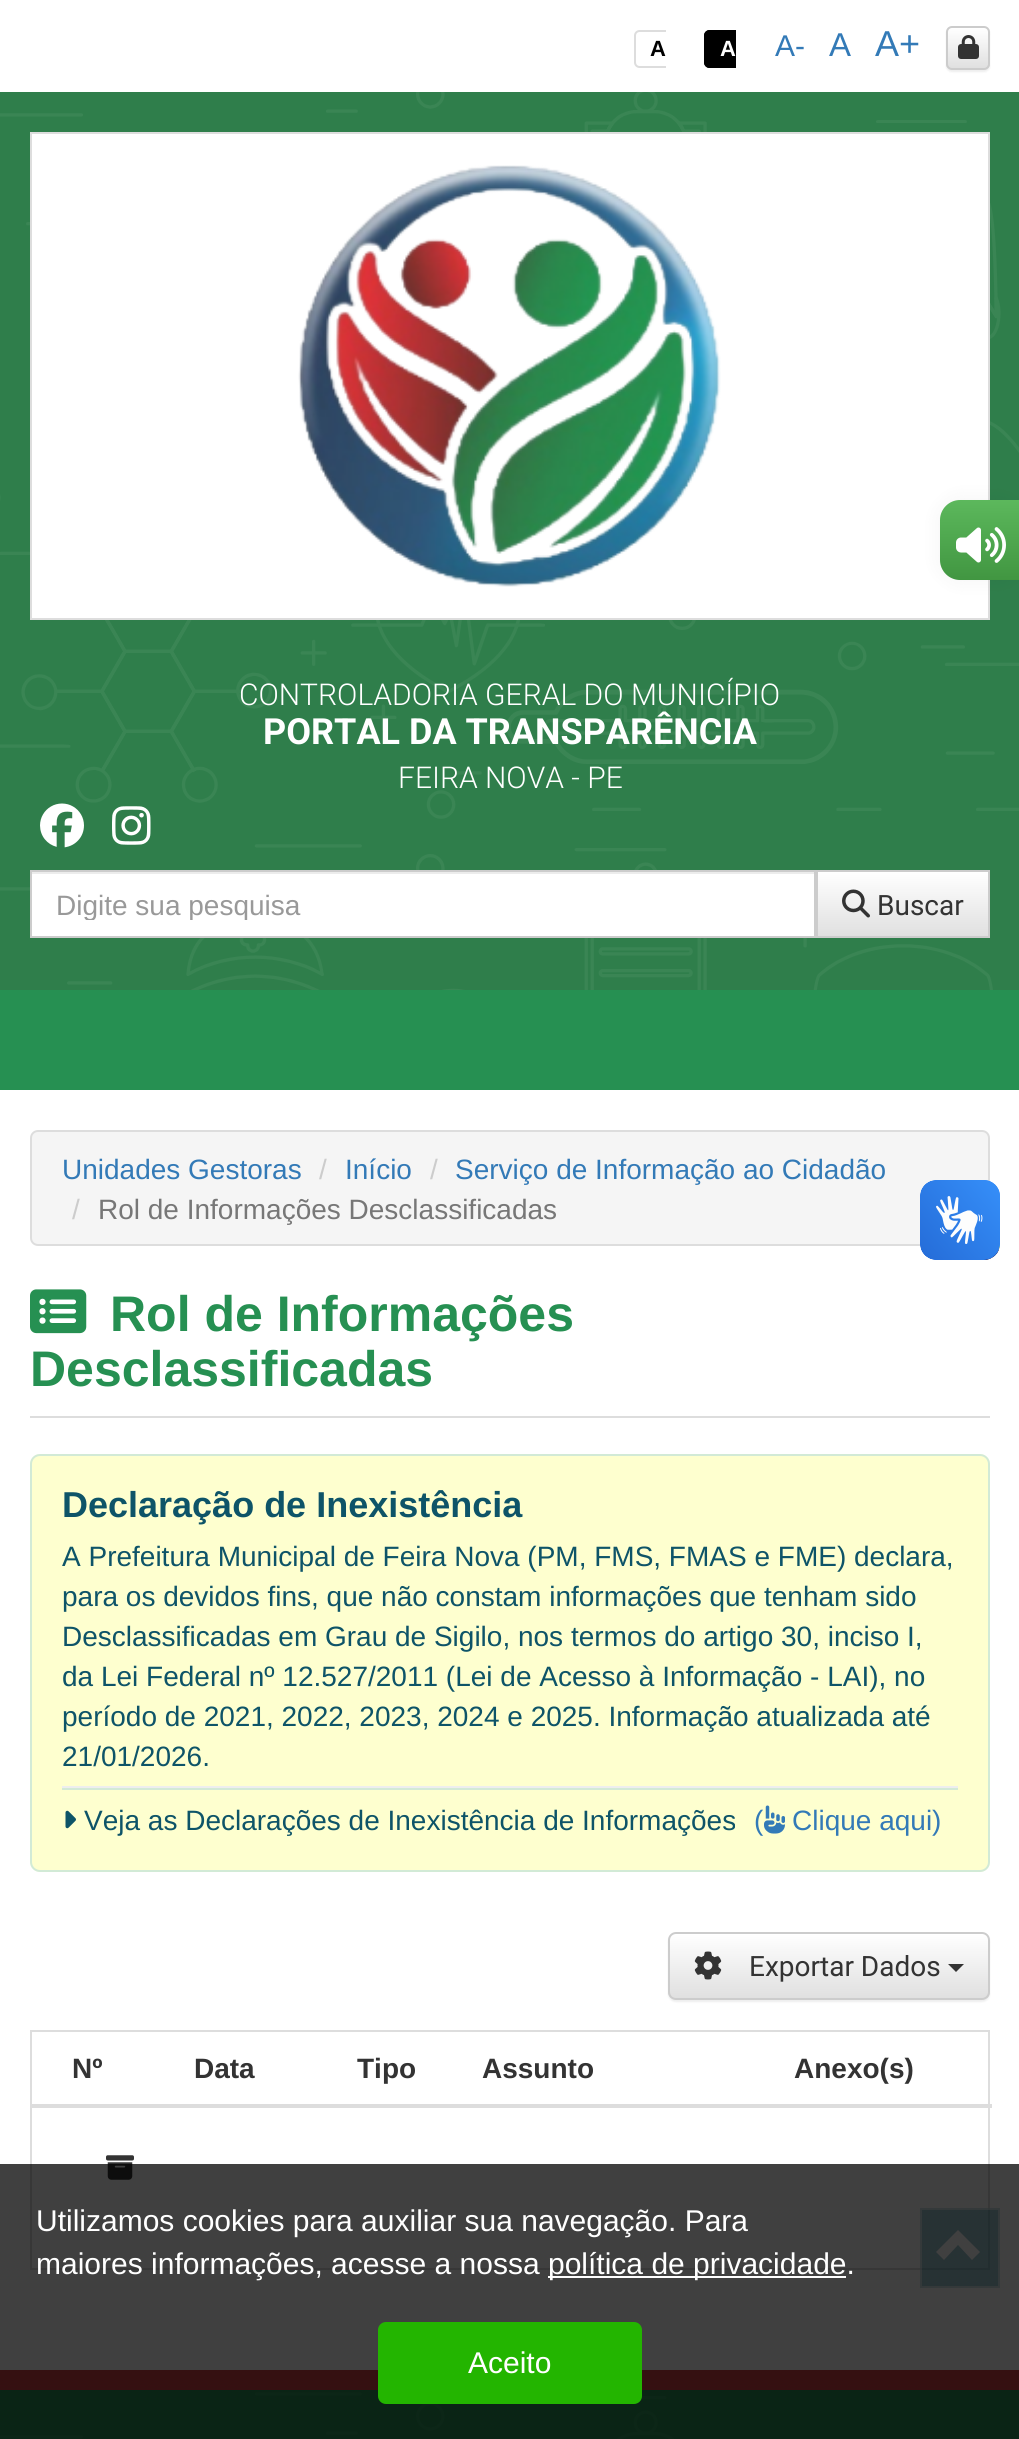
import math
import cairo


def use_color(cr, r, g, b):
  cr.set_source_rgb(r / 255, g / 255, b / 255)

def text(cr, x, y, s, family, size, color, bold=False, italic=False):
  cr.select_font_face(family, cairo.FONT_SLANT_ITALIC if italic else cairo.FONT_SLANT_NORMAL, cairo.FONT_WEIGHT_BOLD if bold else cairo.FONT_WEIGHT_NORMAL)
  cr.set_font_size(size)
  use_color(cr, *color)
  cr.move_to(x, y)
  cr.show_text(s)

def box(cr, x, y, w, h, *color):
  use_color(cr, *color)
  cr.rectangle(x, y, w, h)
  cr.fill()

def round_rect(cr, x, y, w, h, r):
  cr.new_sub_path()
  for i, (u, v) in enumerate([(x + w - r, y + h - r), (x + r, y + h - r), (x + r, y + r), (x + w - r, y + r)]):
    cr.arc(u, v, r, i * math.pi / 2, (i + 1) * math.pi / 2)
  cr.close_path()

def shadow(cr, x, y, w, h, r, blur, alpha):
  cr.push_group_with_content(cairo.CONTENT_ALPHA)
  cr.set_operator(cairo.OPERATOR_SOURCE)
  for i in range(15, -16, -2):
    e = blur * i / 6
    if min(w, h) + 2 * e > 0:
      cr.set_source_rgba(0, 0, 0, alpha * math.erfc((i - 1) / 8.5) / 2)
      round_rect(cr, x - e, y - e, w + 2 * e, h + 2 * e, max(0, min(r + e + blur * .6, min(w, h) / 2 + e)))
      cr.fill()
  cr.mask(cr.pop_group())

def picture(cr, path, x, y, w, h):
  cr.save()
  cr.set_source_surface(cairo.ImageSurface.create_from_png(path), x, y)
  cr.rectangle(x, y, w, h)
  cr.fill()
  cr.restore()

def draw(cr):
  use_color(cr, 255, 255, 255)
  cr.paint()
  box(cr, 920, 2208, 80, 80, 157, 198, 208)
  use_color(cr, 221, 221, 221)
  cr.set_fill_rule(cairo.FILL_RULE_EVEN_ODD)
  cr.new_path()
  cr.move_to(639.5, 30)
  cr.line_to(666, 30)
  cr.line_to(666, 68)
  cr.line_to(639.5, 68)
  cr.curve_to(636.5, 68, 634, 65.5, 634, 62.5)
  cr.line_to(634, 35.5)
  cr.curve_to(634, 32.5, 636.5, 30, 639.5, 30)
  cr.close_path()
  cr.move_to(639.5, 32)
  cr.line_to(666, 32)
  cr.line_to(666, 66)
  cr.line_to(639.5, 66)
  cr.curve_to(637.5, 66, 636, 64.5, 636, 62.5)
  cr.line_to(636, 35.5)
  cr.curve_to(636, 33.5, 637.5, 32, 639.5, 32)
  cr.close_path()
  cr.fill()
  use_color(cr, 0, 0, 0)
  cr.new_path()
  cr.move_to(710, 30)
  cr.line_to(736, 30)
  cr.line_to(736, 68)
  cr.line_to(710, 68)
  cr.curve_to(706.5, 68, 704, 65.5, 704, 62)
  cr.line_to(704, 36)
  cr.curve_to(704, 32.5, 706.5, 30, 710, 30)
  cr.close_path()
  cr.fill()
  cr.new_path()
  cr.move_to(709.5, 30)
  cr.line_to(736, 30)
  cr.line_to(736, 68)
  cr.line_to(709.5, 68)
  cr.curve_to(706.5, 68, 704, 65.5, 704, 62.5)
  cr.line_to(704, 35.5)
  cr.curve_to(704, 32.5, 706.5, 30, 709.5, 30)
  cr.close_path()
  cr.move_to(709.5, 32)
  cr.line_to(736, 32)
  cr.line_to(736, 66)
  cr.line_to(709.5, 66)
  cr.curve_to(707.5, 66, 706, 64.5, 706, 62.5)
  cr.line_to(706, 35.5)
  cr.curve_to(706, 33.5, 707.5, 32, 709.5, 32)
  cr.close_path()
  cr.fill()
  use_color(cr, 0, 0, 0)
  shadow(cr, 946, 28, 44, 44, 6, 1, 0.07)
  cr.save()
  cr.set_fill_rule(cairo.FILL_RULE_WINDING)
  round_rect(cr, 946, 26, 44, 44, 6)
  cr.clip()
  gradient = cairo.LinearGradient(968, 28, 968, 68)
  gradient.add_color_stop_rgba(0, 1, 1, 1, 1)
  gradient.add_color_stop_rgba(1, 0.878, 0.878, 0.878, 1)
  cr.set_source(gradient)
  cr.rectangle(946, 28, 44, 40)
  cr.fill()
  cr.restore()
  round_rect(cr, 947, 27, 42, 42, 5)
  use_color(cr, 204, 204, 204)
  cr.stroke()
  picture(cr, "img_01.png", 958, 35, 21, 24)
  box(cr, 0, 92, 1019, 898, 47, 126, 75)
  picture(cr, "img_04.png", 0, 92, 1019, 898)
  use_color(cr, 255, 255, 255)
  cr.rectangle(31, 133, 958, 486)
  cr.fill_preserve()
  use_color(cr, 221, 221, 221)
  cr.stroke()
  use_color(cr, 0, 0, 0)
  shadow(cr, 940, 500, 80, 80, 20, 10, 0.05)
  gradient = cairo.LinearGradient(980, 500, 980, 580)
  gradient.add_color_stop_rgba(0, 0.361, 0.722, 0.361, 1)
  gradient.add_color_stop_rgba(1, 0.255, 0.588, 0.255, 1)
  cr.set_source(gradient)
  cr.new_path()
  cr.move_to(960, 500)
  cr.line_to(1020, 500)
  cr.line_to(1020, 580)
  cr.line_to(960, 580)
  cr.curve_to(949, 580, 940, 571, 940, 560)
  cr.line_to(940, 520)
  cr.curve_to(940, 509, 949, 500, 960, 500)
  cr.close_path()
  cr.fill()
  picture(cr, "img_02.png", 956, 527, 50, 36)
  box(cr, 988, 2208, 2, 62, 136, 178, 187)
  box(cr, 920, 2268, 70, 2, 136, 178, 187)
  cr.rectangle(921, 2209, 78, 78)
  cr.set_source_rgba(1, 1, 1, 0.5)
  cr.stroke()
  use_color(cr, 255, 255, 255)
  cr.set_fill_rule(cairo.FILL_RULE_WINDING)
  cr.new_path()
  cr.move_to(980, 2252)
  cr.line_to(972, 2260)
  cr.line_to(958, 2245)
  cr.line_to(944, 2260)
  cr.line_to(936, 2252)
  cr.line_to(958, 2230)
  cr.close_path()
  cr.fill()
  box(cr, 0, 2390, 1019, 49, 38, 144, 82)
  picture(cr, "img_03.png", 0, 2392, 674, 47)
  box(cr, 0, 2370, 1019, 20, 213, 63, 68)
  picture(cr, "img_05.png", 298, 165, 423, 422)
  picture(cr, "img_06.png", 40, 803, 44, 45)
  picture(cr, "img_07.png", 112, 806, 39, 39)
  box(cr, 32, 874, 782, 62, 255, 255, 255)
  box(cr, 32, 872, 782, 2, 236, 236, 236)
  cr.rectangle(31, 871, 784, 66)
  use_color(cr, 204, 204, 204)
  cr.stroke()
  gradient = cairo.LinearGradient(903, 872, 903, 936)
  gradient.add_color_stop_rgba(0, 1, 1, 1, 1)
  gradient.add_color_stop_rgba(1, 0.878, 0.878, 0.878, 1)
  cr.set_source(gradient)
  cr.rectangle(818, 872, 170, 64)
  cr.fill()
  cr.rectangle(817, 871, 172, 66)
  use_color(cr, 204, 204, 204)
  cr.stroke()
  picture(cr, "img_08.png", 842, 889, 28, 29)
  box(cr, 0, 990, 1019, 100, 38, 144, 82)
  use_color(cr, 245, 245, 245)
  round_rect(cr, 31, 1131, 958, 114, 7)
  cr.fill_preserve()
  use_color(cr, 221, 221, 221)
  cr.stroke()
  box(cr, 30, 1416, 960, 2, 221, 221, 221)
  picture(cr, "img_09.png", 30, 1289, 57, 45)
  use_color(cr, 254, 255, 207)
  round_rect(cr, 30, 1454, 960, 418, 10)
  cr.fill()
  round_rect(cr, 31, 1455, 958, 416, 9)
  cr.set_source_rgba(0.624, 0.816, 0.875, 0.45)
  cr.stroke()
  box(cr, 62, 1786, 896, 2, 238, 238, 238)
  box(cr, 62, 1788, 896, 2, 211, 234, 214)
  picture(cr, "img_10.png", 65, 1810, 11, 19)
  picture(cr, "img_11.png", 764, 1805, 21, 29)
  use_color(cr, 0, 0, 0)
  shadow(cr, 668, 1934, 322, 68, 8, 1, 0.07)
  cr.save()
  round_rect(cr, 668, 1932, 322, 68, 8)
  cr.clip()
  gradient = cairo.LinearGradient(829, 1934, 829, 1998)
  gradient.add_color_stop_rgba(0, 1, 1, 1, 1)
  gradient.add_color_stop_rgba(1, 0.878, 0.878, 0.878, 1)
  cr.set_source(gradient)
  cr.rectangle(668, 1934, 322, 64)
  cr.fill()
  cr.restore()
  round_rect(cr, 669, 1933, 320, 66, 7)
  use_color(cr, 204, 204, 204)
  cr.stroke()
  picture(cr, "img_12.png", 694, 1951, 28, 29)
  use_color(cr, 51, 51, 51)
  cr.new_path()
  cr.move_to(948, 1964)
  cr.line_to(964, 1964)
  cr.line_to(956, 1972)
  cr.close_path()
  cr.fill()
  box(cr, 30, 2030, 960, 2, 221, 221, 221)
  box(cr, 988, 2030, 2, 178, 221, 221, 221)
  box(cr, 30, 2268, 890, 2, 221, 221, 221)
  box(cr, 30, 2030, 2, 240, 221, 221, 221)
  box(cr, 30, 2104, 962, 4, 221, 221, 221)
  picture(cr, "img_13.png", 106, 2155, 28, 25)
  picture(cr, "img_14.png", 920, 1180, 80, 80)
  picture(cr, "img_15.png", 920, 1180, 80, 80)
  cr.set_source_rgba(0, 0, 0, 0.75)
  cr.rectangle(0, 2164, 1019, 275)
  cr.fill()
  box(cr, 548, 2276, 298, 2, 255, 255, 255)
  use_color(cr, 35, 181, 0)
  round_rect(cr, 378, 2322, 264, 82, 8)
  cr.fill()
  text(cr, 650, 56, "A", "Liberation Sans", 22, (0, 0, 0), bold=True)
  text(cr, 720, 56, "A", "Liberation Sans", 22, (255, 255, 255), bold=True)
  text(cr, 775, 56, "A-", "Liberation Sans", 30, (51, 122, 183))
  text(cr, 829, 56, "A", "Liberation Sans", 33, (51, 122, 183))
  text(cr, 875, 56, "A+", "Liberation Sans", 36, (51, 122, 183))
  text(cr, 239, 705, "CONTROLADORIA GERAL DO MUNICÍPIO", "Roboto Light", 30, (255, 255, 255))
  text(cr, 263, 744, "PORTAL DA TRANSPARÊNCIA", "Roboto", 36, (255, 255, 255), bold=True)
  text(cr, 398, 788, "FEIRA NOVA - PE", "Roboto Light", 30, (255, 255, 255))
  cr.save()
  cr.rectangle(56, 888, 734, 32)
  cr.clip()
  text(cr, 56, 915, "Digite sua pesquisa", "Liberation Sans", 28, (153, 153, 153))
  cr.restore()
  text(cr, 877, 915, "Buscar", "Roboto", 28, (51, 51, 51))
  text(cr, 62, 1179, "Unidades Gestoras", "Liberation Sans", 28, (51, 122, 183))
  text(cr, 319, 1179, "/", "Liberation Sans", 28, (204, 204, 204))
  text(cr, 345, 1179, "Início", "Liberation Sans", 28, (51, 122, 183))
  text(cr, 430, 1179, "/", "Liberation Sans", 28, (204, 204, 204))
  text(cr, 455, 1179, "Serviço de Informação ao Cidadão", "Liberation Sans", 28, (51, 122, 183))
  text(cr, 72, 1219, "/", "Liberation Sans", 28, (204, 204, 204))
  text(cr, 98, 1219, "Rol de Informações Desclassificadas", "Liberation Sans", 28, (119, 119, 119))
  text(cr, 110, 1331, "Rol de Informações", "Liberation Sans", 50, (38, 144, 82), bold=True)
  text(cr, 30, 1386, "Desclassificadas", "Liberation Sans", 50, (38, 144, 82), bold=True)
  text(cr, 62, 1517, "Declaração de Inexistência", "Liberation Sans", 36, (14, 84, 104), bold=True)
  text(cr, 62, 1566, "A Prefeitura Municipal de Feira Nova (PM, FMS, FMAS e FME) declara,", "Liberation Sans", 28, (14, 84, 104))
  text(cr, 62, 1606, "para os devidos fins, que não constam informações que tenham sido", "Liberation Sans", 28, (14, 84, 104))
  text(cr, 62, 1646, "Desclassificadas em Grau de Sigilo, nos termos do artigo 30, inciso I,", "Liberation Sans", 28, (14, 84, 104))
  text(cr, 62, 1686, "da Lei Federal nº 12.527/2011 (Lei de Acesso à Informação - LAI), no", "Liberation Sans", 28, (14, 84, 104))
  text(cr, 62, 1726, "período de 2021, 2022, 2023, 2024 e 2025. Informação atualizada até", "Liberation Sans", 28, (14, 84, 104))
  text(cr, 62, 1766, "21/01/2026.", "Liberation Sans", 28, (14, 84, 104))
  text(cr, 84, 1830, "Veja as Declarações de Inexistência de Informações", "Liberation Sans", 28, (14, 84, 104))
  text(cr, 754, 1830, "(", "Liberation Sans", 28, (51, 122, 183))
  text(cr, 792, 1830, "Clique aqui)", "Liberation Sans", 28, (51, 122, 183))
  text(cr, 749, 1976, "Exportar Dados", "Roboto", 28, (51, 51, 51))
  text(cr, 72, 2078, "Nº", "Liberation Sans", 28, (51, 51, 51), bold=True)
  text(cr, 194, 2078, "Data", "Liberation Sans", 28, (51, 51, 51), bold=True)
  text(cr, 357, 2078, "Tipo", "Liberation Sans", 28, (51, 51, 51), bold=True)
  text(cr, 482, 2078, "Assunto", "Liberation Sans", 28, (51, 51, 51), bold=True)
  text(cr, 794, 2078, "Anexo(s)", "Liberation Sans", 28, (51, 51, 51), bold=True)
  text(cr, 36, 2231, "Utilizamos cookies para auxiliar sua navegação. Para", "Liberation Sans", 30, (255, 255, 255))
  text(cr, 36, 2274, "maiores informações, acesse a nossa", "Liberation Sans", 30, (255, 255, 255))
  text(cr, 548, 2274, "política de privacidade.", "Liberation Sans", 30, (255, 255, 255))
  text(cr, 468, 2373, "Aceito", "Liberation Sans", 30, (255, 255, 255))


surface = cairo.ImageSurface(cairo.FORMAT_RGB24, 1019, 2439)
cr = cairo.Context(surface)
options = cairo.FontOptions()
options.set_hint_metrics(cairo.HINT_METRICS_OFF)
options.set_hint_style(cairo.HINT_STYLE_NONE)
cr.set_font_options(options)
cr.set_miter_limit(4)
draw(cr)
surface.write_to_png("out.png")
